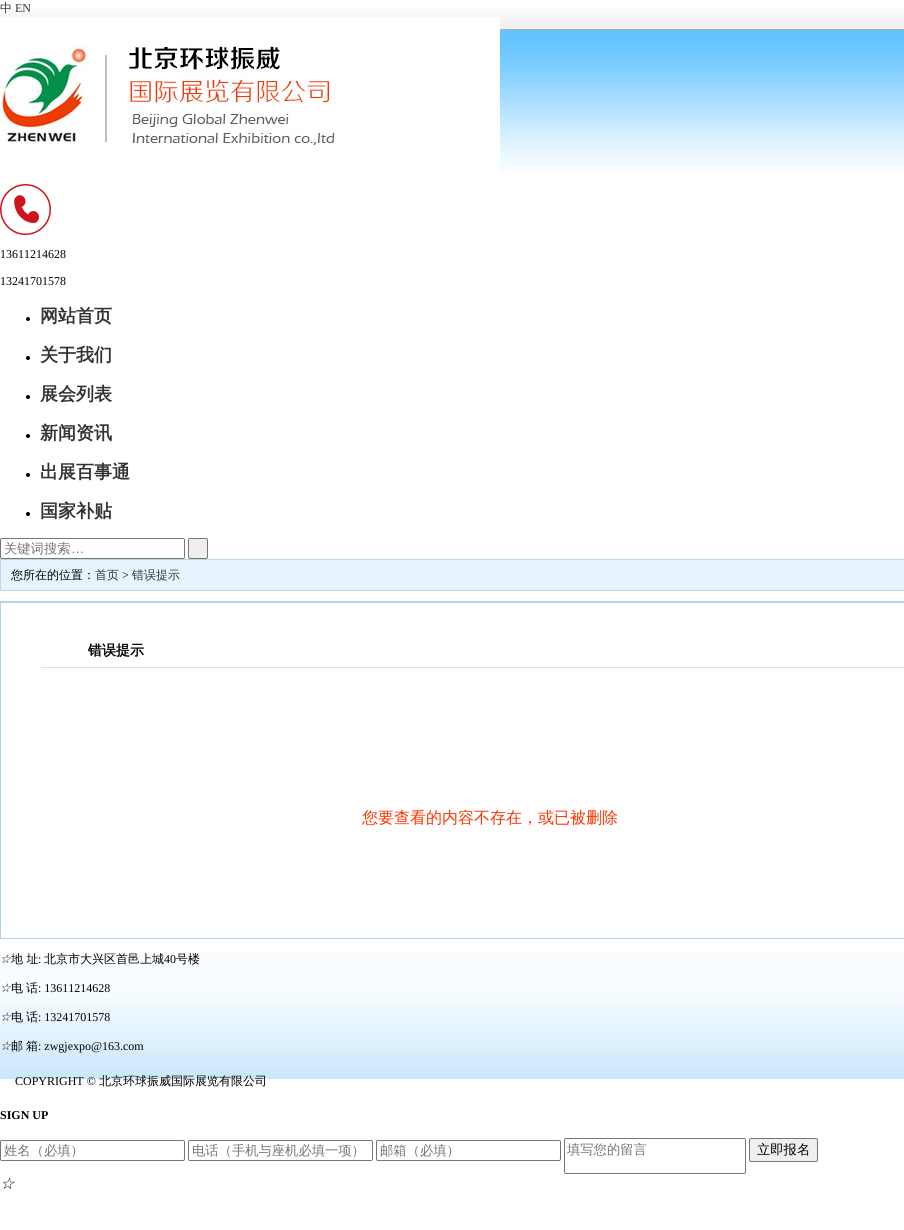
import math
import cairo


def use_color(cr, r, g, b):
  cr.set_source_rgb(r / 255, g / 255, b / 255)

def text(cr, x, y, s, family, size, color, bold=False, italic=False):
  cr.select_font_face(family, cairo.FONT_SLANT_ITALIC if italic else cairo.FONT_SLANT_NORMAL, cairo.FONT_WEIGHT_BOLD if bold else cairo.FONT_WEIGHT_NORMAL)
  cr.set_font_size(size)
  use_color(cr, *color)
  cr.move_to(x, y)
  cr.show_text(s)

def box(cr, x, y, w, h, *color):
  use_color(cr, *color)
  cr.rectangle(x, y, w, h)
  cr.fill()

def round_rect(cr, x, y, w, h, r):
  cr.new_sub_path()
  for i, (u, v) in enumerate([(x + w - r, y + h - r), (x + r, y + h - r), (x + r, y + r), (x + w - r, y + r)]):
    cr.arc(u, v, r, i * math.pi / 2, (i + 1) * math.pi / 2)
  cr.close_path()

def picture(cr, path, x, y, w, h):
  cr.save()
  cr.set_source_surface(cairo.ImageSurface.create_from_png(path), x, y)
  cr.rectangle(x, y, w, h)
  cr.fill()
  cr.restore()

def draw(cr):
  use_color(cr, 255, 255, 255)
  cr.paint()
  picture(cr, "img_01.png", 0, 9, 904, 163)
  picture(cr, "img_02.png", 0, 17, 500, 155)
  picture(cr, "img_03.png", 0, 184, 51, 51)
  use_color(cr, 0, 0, 0)
  cr.arc(28, 319, 2, 0, 2 * math.pi)
  cr.fill()
  cr.arc(28, 358, 2, 0, 2 * math.pi)
  cr.fill()
  cr.arc(28, 397, 2, 0, 2 * math.pi)
  cr.fill()
  cr.arc(28, 436, 2, 0, 2 * math.pi)
  cr.fill()
  cr.arc(28, 475, 2, 0, 2 * math.pi)
  cr.fill()
  cr.arc(28, 514, 2, 0, 2 * math.pi)
  cr.fill()
  round_rect(cr, 0.5, 538.5, 184, 20, 1.5)
  use_color(cr, 118, 118, 118)
  cr.set_line_width(1)
  cr.stroke()
  use_color(cr, 239, 239, 239)
  round_rect(cr, 188.5, 538.5, 19, 20, 1.5)
  cr.fill_preserve()
  use_color(cr, 118, 118, 118)
  cr.stroke()
  use_color(cr, 231, 244, 255)
  cr.rectangle(0.5, 559.5, 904, 31)
  cr.fill_preserve()
  use_color(cr, 190, 215, 232)
  cr.stroke()
  box(cr, 0, 601, 904, 2, 176, 212, 236)
  box(cr, 0, 938, 904, 1, 176, 212, 236)
  box(cr, 0, 601, 1, 338, 176, 212, 236)
  box(cr, 41, 667, 863, 1, 224, 224, 224)
  picture(cr, "img_04.png", 0, 952, 904, 127)
  round_rect(cr, 0.5, 1140.5, 184, 20, 1.5)
  use_color(cr, 118, 118, 118)
  cr.stroke()
  round_rect(cr, 188.5, 1140.5, 184, 20, 1.5)
  cr.stroke()
  round_rect(cr, 376.5, 1140.5, 184, 20, 1.5)
  cr.stroke()
  round_rect(cr, 564.5, 1138.5, 181, 35, 1.5)
  cr.stroke()
  use_color(cr, 239, 239, 239)
  round_rect(cr, 749.5, 1138.5, 68, 23, 1.5)
  cr.fill_preserve()
  use_color(cr, 118, 118, 118)
  cr.stroke()
  text(cr, 0, 12, "中", "WenQuanYi Zen Hei Medium", 12, (51, 51, 51))
  text(cr, 15, 12, "EN", "Liberation Serif", 12, (51, 51, 51))
  text(cr, 0, 258, "13611214628", "Liberation Serif", 12, (0, 0, 0))
  text(cr, 0, 285, "13241701578", "Liberation Serif", 12, (0, 0, 0))
  text(cr, 40, 322, "网站首页", "WenQuanYi Zen Hei", 18, (51, 51, 51), bold=True)
  text(cr, 40, 361, "关于我们", "WenQuanYi Zen Hei", 18, (51, 51, 51), bold=True)
  text(cr, 40, 400, "展会列表", "WenQuanYi Zen Hei", 18, (51, 51, 51), bold=True)
  text(cr, 40, 439, "新闻资讯", "WenQuanYi Zen Hei", 18, (51, 51, 51), bold=True)
  text(cr, 40, 478, "出展百事通", "WenQuanYi Zen Hei", 18, (51, 51, 51), bold=True)
  text(cr, 40, 517, "国家补贴", "WenQuanYi Zen Hei", 18, (51, 51, 51), bold=True)
  text(cr, 4, 553, "关键词搜索", "WenQuanYi Zen Hei Medium", 13.3, (117, 117, 117))
  text(cr, 71, 553, "…", "Liberation Sans", 13.3, (117, 117, 117))
  text(cr, 11, 579, "您所在的位置：", "WenQuanYi Zen Hei Medium", 12, (0, 0, 0))
  text(cr, 95, 579, "首页", "WenQuanYi Zen Hei Medium", 12, (51, 51, 51))
  text(cr, 122, 579, ">", "Liberation Serif", 12, (0, 0, 0))
  text(cr, 132, 579, "错误提示", "WenQuanYi Zen Hei Medium", 12, (51, 51, 51))
  text(cr, 88, 655, "错误提示", "WenQuanYi Zen Hei", 14, (0, 0, 0), bold=True)
  text(cr, 362, 823, "您要查看的内容不存在，或已被删除", "WenQuanYi Zen Hei Medium", 16, (255, 51, 0))
  text(cr, 0, 963, "☆", "DejaVu Sans", 12, (0, 0, 0), italic=True)
  text(cr, 11, 963, "地 址", "WenQuanYi Zen Hei Medium", 12, (0, 0, 0))
  text(cr, 38, 963, ":", "Liberation Serif", 12, (0, 0, 0))
  text(cr, 44, 963, "北京市大兴区首邑上城", "WenQuanYi Zen Hei Medium", 12, (0, 0, 0))
  text(cr, 164, 963, "40", "Liberation Serif", 12, (0, 0, 0))
  text(cr, 176, 963, "号楼", "WenQuanYi Zen Hei Medium", 12, (0, 0, 0))
  text(cr, 0, 992, "☆", "DejaVu Sans", 12, (0, 0, 0), italic=True)
  text(cr, 11, 992, "电", "WenQuanYi Zen Hei Medium", 12, (0, 0, 0))
  text(cr, 26, 992, "话", "WenQuanYi Zen Hei Medium", 12, (0, 0, 0))
  text(cr, 38, 992, ": 13611214628", "Liberation Serif", 12, (0, 0, 0))
  text(cr, 0, 1021, "☆", "DejaVu Sans", 12, (0, 0, 0), italic=True)
  text(cr, 11, 1021, "电", "WenQuanYi Zen Hei Medium", 12, (0, 0, 0))
  text(cr, 26, 1021, "话", "WenQuanYi Zen Hei Medium", 12, (0, 0, 0))
  text(cr, 38, 1021, ": 13241701578", "Liberation Serif", 12, (0, 0, 0))
  text(cr, 0, 1050, "☆", "DejaVu Sans", 12, (0, 0, 0), italic=True)
  text(cr, 11, 1050, "邮", "WenQuanYi Zen Hei Medium", 12, (0, 0, 0))
  text(cr, 26, 1050, "箱", "WenQuanYi Zen Hei Medium", 12, (0, 0, 0))
  text(cr, 38, 1050, ": zwgjexpo@163.com", "Liberation Serif", 12, (0, 0, 0))
  text(cr, 15, 1085, "COPYRIGHT ©", "Liberation Serif", 12, (0, 0, 0))
  text(cr, 99, 1085, "北京环球振威国际展览有限公司", "WenQuanYi Zen Hei Medium", 12, (0, 0, 0))
  text(cr, 0, 1119, "SIGN UP", "Liberation Serif", 12, (0, 0, 0), bold=True)
  text(cr, 4, 1155, "姓名（必填）", "WenQuanYi Zen Hei Medium", 13.3, (117, 117, 117))
  text(cr, 192, 1155, "电话（手机与座机必填一项）", "WenQuanYi Zen Hei Medium", 13.3, (117, 117, 117))
  text(cr, 380, 1155, "邮箱（必填）", "WenQuanYi Zen Hei Medium", 13.3, (117, 117, 117))
  text(cr, 567, 1154, "填写您的留言", "WenQuanYi Zen Hei Medium", 13.3, (117, 117, 117))
  text(cr, 757, 1154, "立即报名", "WenQuanYi Zen Hei Medium", 13.3, (0, 0, 0))
  text(cr, 0, 1189, "☆", "DejaVu Sans", 16, (0, 0, 0), italic=True)


surface = cairo.ImageSurface(cairo.FORMAT_RGB24, 904, 1230)
cr = cairo.Context(surface)
options = cairo.FontOptions()
options.set_hint_metrics(cairo.HINT_METRICS_OFF)
options.set_hint_style(cairo.HINT_STYLE_NONE)
cr.set_font_options(options)
cr.set_miter_limit(4)
draw(cr)
surface.write_to_png("out.png")
